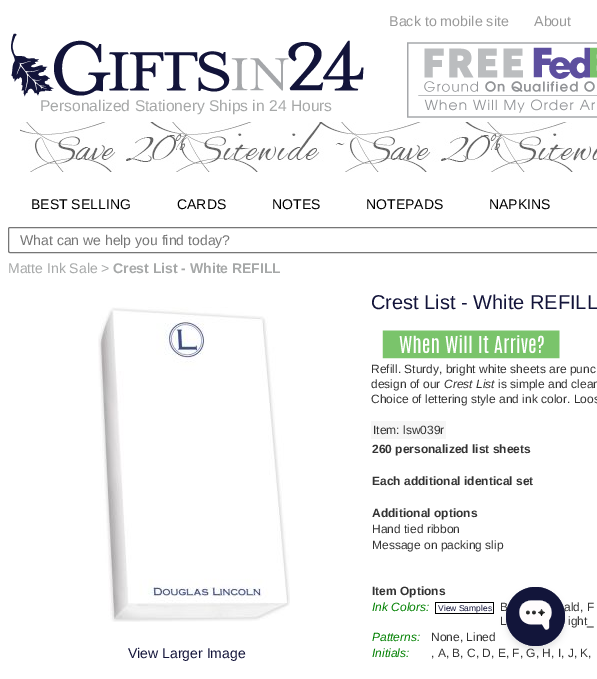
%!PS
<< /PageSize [597 679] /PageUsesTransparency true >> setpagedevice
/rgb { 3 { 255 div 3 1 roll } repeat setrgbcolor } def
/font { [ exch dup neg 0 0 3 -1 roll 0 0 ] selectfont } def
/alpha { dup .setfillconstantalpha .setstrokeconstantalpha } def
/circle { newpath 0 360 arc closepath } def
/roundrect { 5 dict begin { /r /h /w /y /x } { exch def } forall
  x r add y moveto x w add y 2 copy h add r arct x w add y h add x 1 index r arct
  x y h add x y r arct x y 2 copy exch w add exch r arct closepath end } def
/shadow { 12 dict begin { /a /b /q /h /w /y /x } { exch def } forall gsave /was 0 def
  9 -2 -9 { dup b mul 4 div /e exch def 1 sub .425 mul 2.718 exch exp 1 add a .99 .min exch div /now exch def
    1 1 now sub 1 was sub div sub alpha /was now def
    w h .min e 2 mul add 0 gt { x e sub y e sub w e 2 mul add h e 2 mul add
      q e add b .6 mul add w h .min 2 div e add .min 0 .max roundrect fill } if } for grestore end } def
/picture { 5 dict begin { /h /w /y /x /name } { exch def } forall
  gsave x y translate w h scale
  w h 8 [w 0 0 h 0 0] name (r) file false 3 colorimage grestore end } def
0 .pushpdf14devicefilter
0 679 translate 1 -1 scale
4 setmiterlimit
255 255 255 rgb
0 0 597 679 rectfill
(img/1.rgb) 11 33 353 64 picture
(img/2.rgb) 407 42 190 76 picture
(img/3.rgb) 20 122 577 50 picture
118 118 118 rgb
8.5 227.5 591 25 1.5 roundrect stroke
(img/4.rgb) 98 307 192 315 picture
(img/5.rgb) 382 330 178 29 picture
[
  [371 421 75 18 246 246 246]
  [435 602 59 1 0 0 0]
  [435 613 56 1 0 0 0]
  [435 602 1 12 0 0 0]
  [493 602 1 12 0 0 0]
  [491 613 3 1 0 0 0]
] { aload pop rgb rectfill } forall
506 591 59 59 29.5 3 0.1 shadow
/LiberationSans-Regular 14.25 font
153 153 153 rgb
389 26 moveto (Back to mobile site) show
534 26 moveto (About) show
/LiberationSans-Regular 15.6 font
166 168 168 rgb
40 111 moveto (Personalized Stationery Ships in 24 Hours) show
/LiberationSans-Regular 14 font
0 0 0 rgb
[
  [(BEST SELLING) 31 209]
  [(CARDS) 177 209]
  [(NOTES) 272 209]
  [(NOTEPADS) 366 209]
  [(NAPKINS) 489 209]
] { aload pop moveto show } forall
117 117 117 rgb
20 245 moveto (What can we help you find today?) show
166 168 168 rgb
8 273 moveto (Matte Ink Sale >) show
/LiberationSans-Bold 14 font
113 273 moveto (Crest List - White REFILL) show
/LiberationSans-Regular 14 font
19 20 58 rgb
128 658 moveto (View Larger Image) show
/LiberationSans-Regular 20 font
371 309 moveto (Crest List - White REFILL) show
/LiberationSans-Regular 12 font
51 51 51 rgb
371 373 moveto (Refill. Sturdy, bright white sheets are punc) show
371 388 moveto (design of our) show
/LiberationSans-Italic 12 font
444 388 moveto (Crest List) show
/LiberationSans-Regular 12 font
[
  [(is simple and clean) 498 388]
  [(Choice of lettering style and ink color. Loos) 371 403]
  [(Item: lsw039r) 373 434]
] { aload pop moveto show } forall
/LiberationSans-Bold 12 font
[
  [(260 personalized list sheets) 372 453]
  [(Each additional identical set) 372 485]
  [(Additional options) 372 517]
] { aload pop moveto show } forall
/LiberationSans-Regular 12 font
372 533 moveto (Hand tied ribbon) show
372 549 moveto (Message on packing slip) show
/LiberationSans-Bold 12 font
372 595 moveto (Item Options) show
/LiberationSans-Italic 12 font
0 128 0 rgb
372 611 moveto (Ink Colors:) show
/LiberationSans-Regular 8.5 font
19 20 58 rgb
438 611 moveto (View Samples) show
/LiberationSans-Regular 12 font
51 51 51 rgb
[
  [(B) 500 611]
  [(ald, F) 564 611]
  [(L) 500 625]
  [(ight_) 568 625]
] { aload pop moveto show } forall
/LiberationSans-Italic 12 font
0 128 0 rgb
372 641 moveto (Patterns:) show
/LiberationSans-Regular 12 font
51 51 51 rgb
431 641 moveto (None, Lined) show
/LiberationSans-Italic 12 font
0 128 0 rgb
372 657 moveto (Initials:) show
/LiberationSans-Regular 12 font
51 51 51 rgb
431 657 moveto (, A, B, C, D, E, F, G, H, I, J, K,) show
18 21 58 rgb
535.5 616.5 29.5 circle fill
0.75 alpha
535.5 616.5 29.5 circle fill
1 alpha
(img/6.rgb) 519 600 33 30 picture
.poppdf14devicefilter showpage
